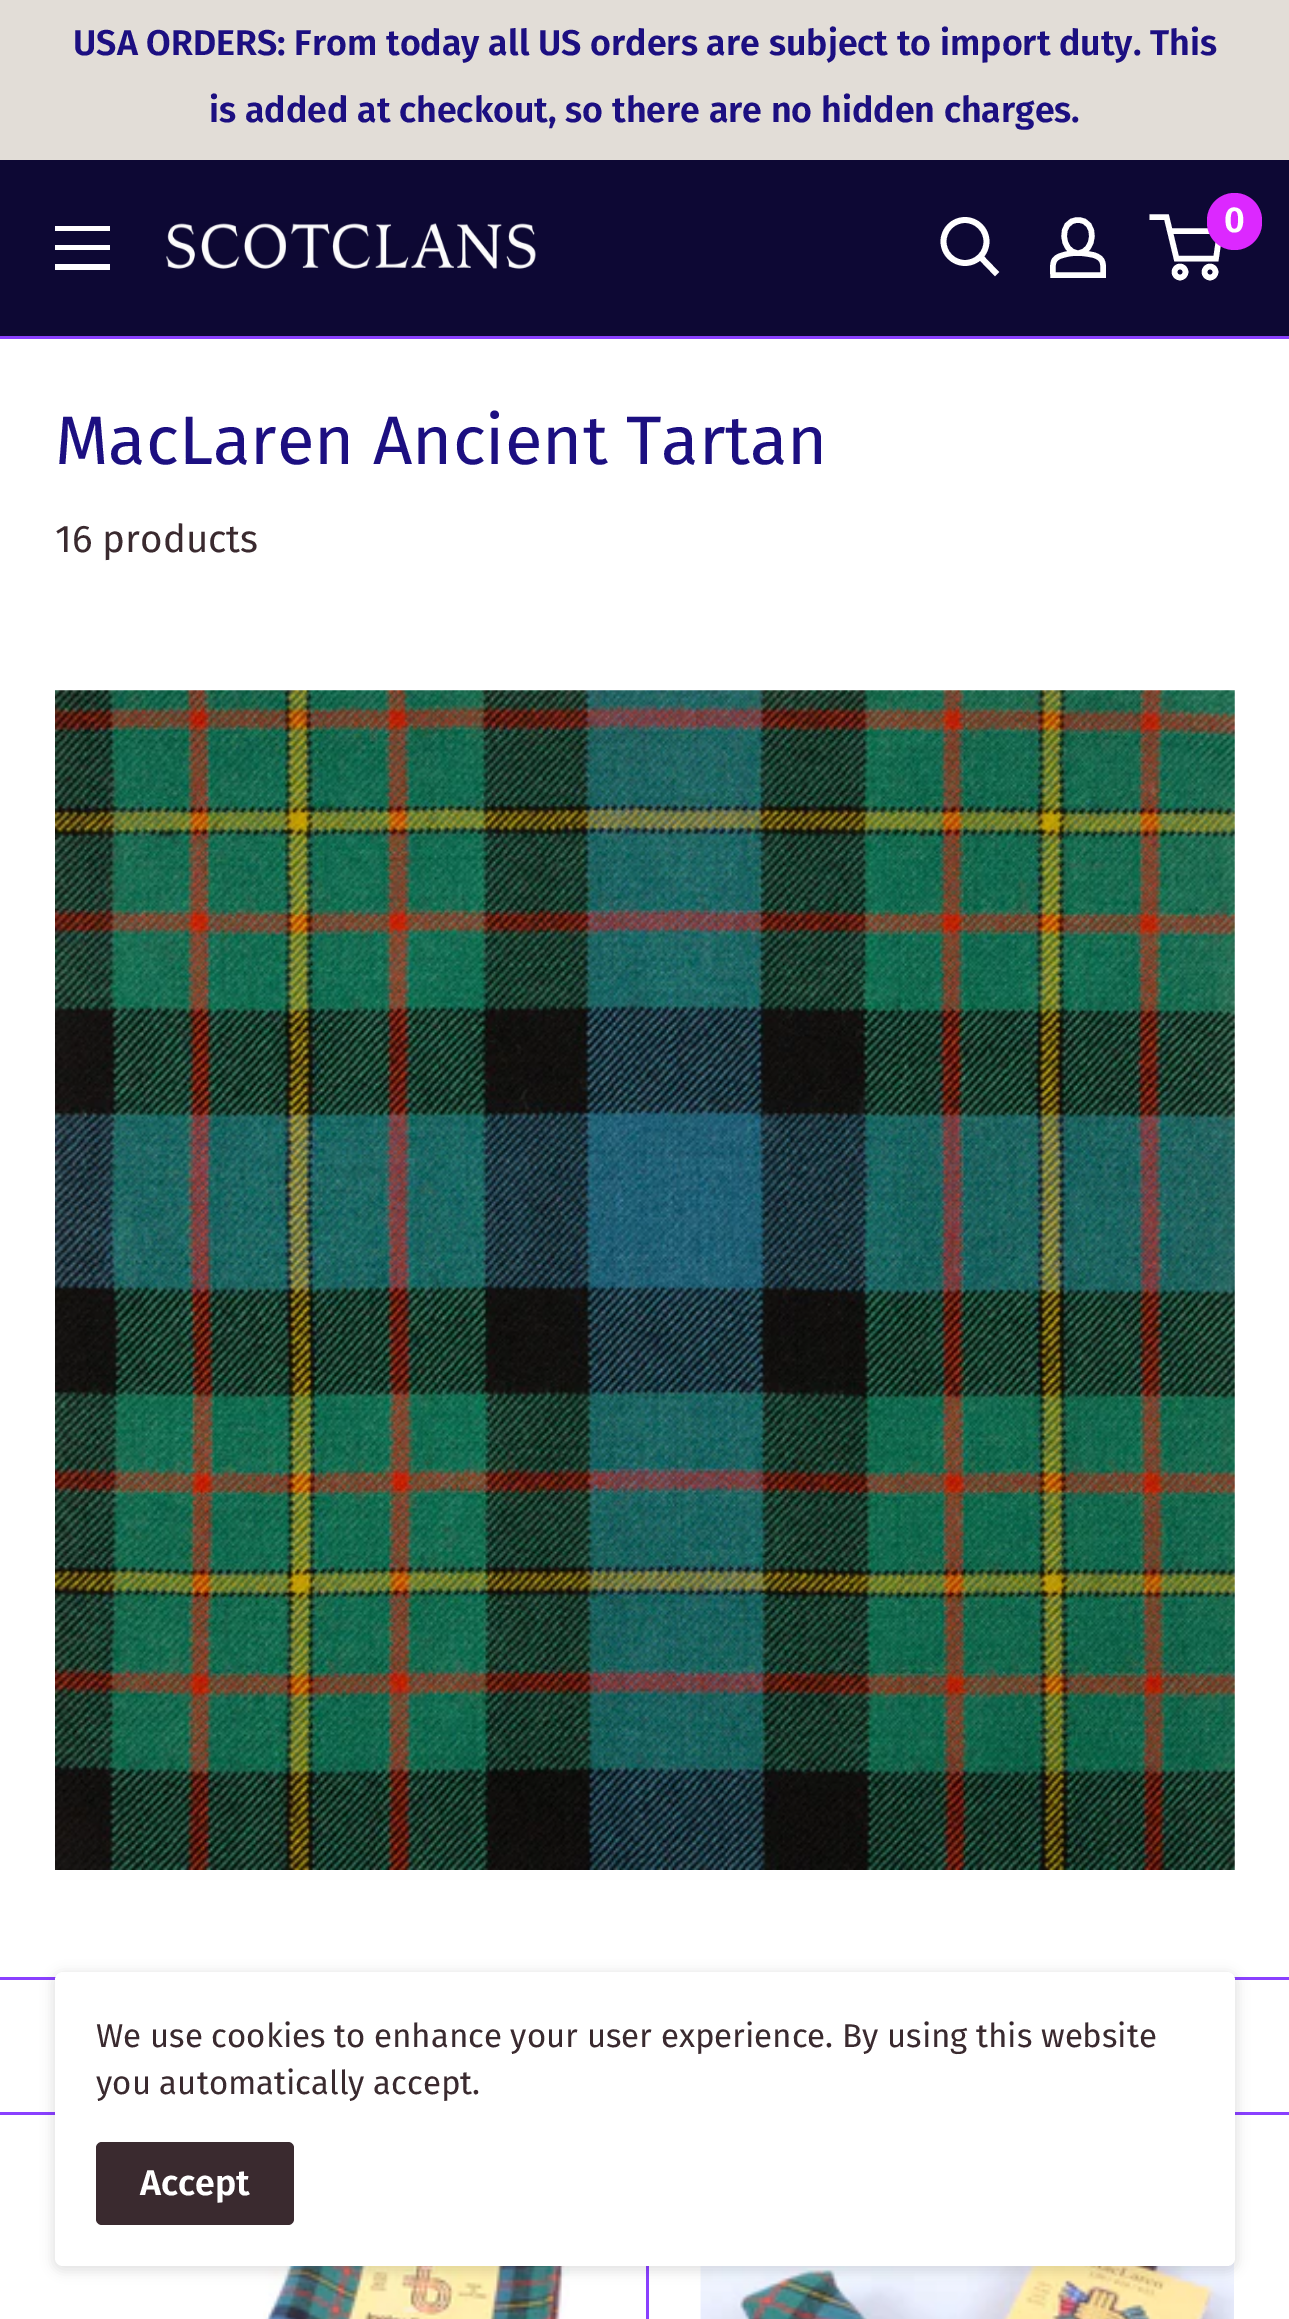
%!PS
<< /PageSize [1289 2319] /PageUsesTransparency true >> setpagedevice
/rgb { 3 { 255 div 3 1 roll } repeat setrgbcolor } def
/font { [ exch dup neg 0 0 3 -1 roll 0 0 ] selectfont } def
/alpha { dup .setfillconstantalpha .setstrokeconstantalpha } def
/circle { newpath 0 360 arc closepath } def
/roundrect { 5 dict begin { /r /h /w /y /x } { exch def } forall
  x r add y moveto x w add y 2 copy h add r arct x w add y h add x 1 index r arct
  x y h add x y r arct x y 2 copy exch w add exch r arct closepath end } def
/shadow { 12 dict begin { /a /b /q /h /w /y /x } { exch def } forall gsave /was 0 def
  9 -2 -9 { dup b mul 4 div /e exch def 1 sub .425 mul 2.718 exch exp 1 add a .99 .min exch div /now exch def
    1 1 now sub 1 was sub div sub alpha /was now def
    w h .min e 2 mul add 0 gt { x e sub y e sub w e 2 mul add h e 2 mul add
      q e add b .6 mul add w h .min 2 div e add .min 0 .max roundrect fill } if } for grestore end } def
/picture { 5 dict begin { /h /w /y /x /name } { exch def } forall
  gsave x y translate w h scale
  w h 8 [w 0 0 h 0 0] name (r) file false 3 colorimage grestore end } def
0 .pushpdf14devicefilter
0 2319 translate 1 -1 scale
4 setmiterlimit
226 221 215 rgb
0 0 1289 2319 rectfill
13 8 52 rgb
0 160 1289 176 rectfill
255 255 255 rgb
5.8 setlinewidth
2 setlinecap
995 272 moveto 981 257.5 lineto stroke
0 setlinecap
965 241.5 21.5 circle stroke
5.5 setlinewidth
1078 253 moveto 1083 253 1088.5 254 1093.5 255 curveto 1105 258.5 1103 264.5 1103 275 curveto 1053 275 lineto 1053 264 1051 258 1063.5 255 curveto 1068 253.5 1073 253 1078 253 curveto closepath 1078 253 moveto 1061 253 1058 220 1078 220 curveto 1098 220 1095 253 1078 253 curveto closepath stroke
1180 272 5.5 circle stroke
1210 272 5.5 circle stroke
1169.5 231 moveto 1220 231 lineto 1216 258.5 lineto 1176.5 258.5 lineto 1166.5 217 lineto 1149.5 217 lineto stroke
220 40 255 rgb
1207 193 55 57 27.5 roundrect fill
255 255 255 rgb
55 264 moveto 110 264 lineto 110 270 lineto 55 270 lineto closepath 55 226 moveto 110 226 lineto 110 231 lineto 55 231 lineto closepath 55 245 moveto 110 245 lineto 110 250 lineto 55 250 lineto closepath eofill
(img/1.rgb) 166 223 370 46 picture
0 339 1289 1980 rectfill
138 64 255 rgb
0 336 1289 3 rectfill
(img/2.rgb) 55 690 1180 1180 picture
0 1977 moveto 0 1980 lineto 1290 1980 lineto 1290 2109 lineto 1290 1977 lineto closepath fill
0 2112 moveto 0 2115 lineto 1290 2115 lineto 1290 1983 lineto 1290 2112 lineto closepath fill
(img/3.rgb) 263 2266 307 53 picture
646 2266 3 53 rectfill
(img/4.rgb) 700 2261 534 58 picture
0 0 0 rgb
52 1972 1186 300 11 5.5 0.1 shadow
255 255 255 rgb
55 1972 1180 294 8 roundrect fill
58 42 47 rgb
96 2142 198 83 6 roundrect fill
/FiraSans-SemiBold 35.75 font
28 15 129 rgb
73 55 moveto (USA ORDERS: From today all US orders are subject to import duty. This) show
209 122 moveto (is added at checkout, so there are no hidden charges.) show
/FiraSans-SemiBold 36 font
255 255 255 rgb
1224 232 moveto (0) show
/FiraSans-Regular 68.75 font
28 15 129 rgb
55 464 moveto (MacLaren Ancient Tartan) show
/FiraSans-Regular 38.5 font
58 42 47 rgb
55 552 moveto (16 products) show
/FiraSans-Regular 33 font
96 2047 moveto (We use cookies to enhance your user experience. By using this website) show
96 2094 moveto (you automatically accept.) show
/FiraSans-SemiBold 35.75 font
255 255 255 rgb
140 2195 moveto (Accept) show
.poppdf14devicefilter showpage
